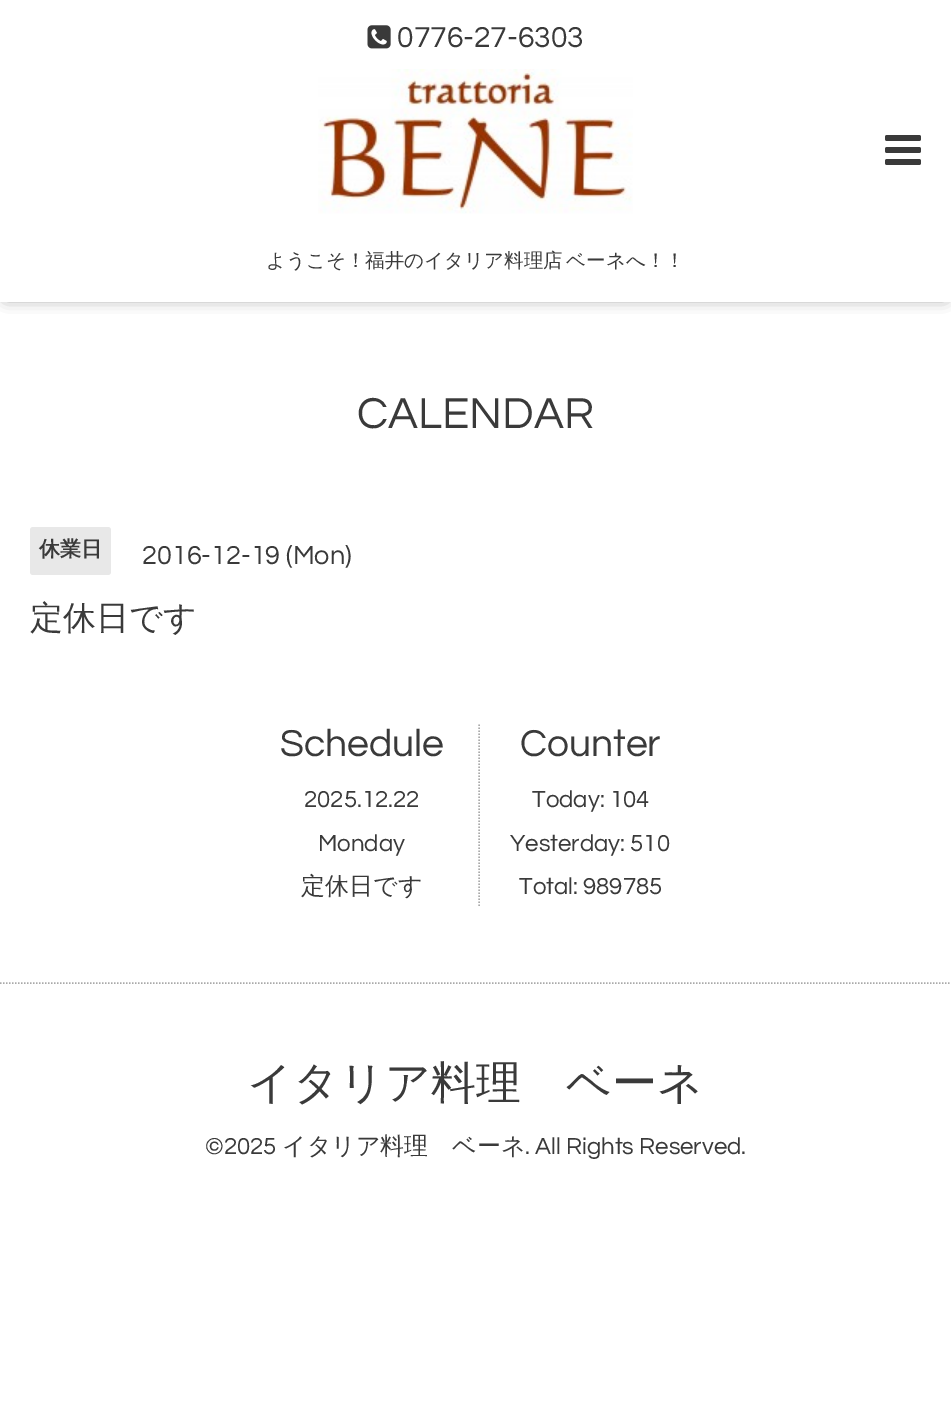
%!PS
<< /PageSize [951 1412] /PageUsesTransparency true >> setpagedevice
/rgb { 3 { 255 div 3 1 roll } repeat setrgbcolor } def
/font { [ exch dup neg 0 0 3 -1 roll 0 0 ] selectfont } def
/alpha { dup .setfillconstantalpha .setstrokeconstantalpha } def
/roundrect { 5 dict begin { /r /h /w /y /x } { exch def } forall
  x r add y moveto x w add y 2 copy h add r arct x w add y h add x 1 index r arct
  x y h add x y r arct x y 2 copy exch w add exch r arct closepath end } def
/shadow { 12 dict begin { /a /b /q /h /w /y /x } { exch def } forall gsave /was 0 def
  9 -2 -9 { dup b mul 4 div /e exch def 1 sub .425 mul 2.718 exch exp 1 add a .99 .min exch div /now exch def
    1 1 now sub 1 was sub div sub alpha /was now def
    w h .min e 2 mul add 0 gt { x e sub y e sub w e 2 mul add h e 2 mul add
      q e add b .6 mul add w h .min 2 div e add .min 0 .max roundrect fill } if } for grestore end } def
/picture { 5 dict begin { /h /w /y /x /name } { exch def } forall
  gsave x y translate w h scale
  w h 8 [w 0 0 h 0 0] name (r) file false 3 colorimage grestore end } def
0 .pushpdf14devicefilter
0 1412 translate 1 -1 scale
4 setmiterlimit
255 255 255 rgb
0 0 951 1412 rectfill
0 0 0 rgb
6 8 939 289 0 7.5 0.6 shadow
255 255 255 rgb
0 0 951 302 rectfill
(img/1.rgb) 367 25 24 24 picture
(img/2.rgb) 318 69 315 145 picture
(img/3.rgb) 885 135 36 30 picture
232 232 232 rgb
30 527 81 48 3 roundrect fill
169 169 169 rgb
1.5 setlinewidth
[1.5 1.5] 0 setdash
479 724.5 moveto 479 907.5 lineto stroke
0 983 moveto 951 983 lineto stroke
/Questrial-Regular 30 font
58 58 58 rgb
397 47 moveto (0776-27-6303) show
/WenQuanYiZenHei-Medium 19.5 font
266 267 moveto -2 0 32 (ようこそ！福井のイタリア料理店 ベーネへ！！) widthshow
/Questrial-Regular 45 font
357 428 moveto (CALENDAR) show
/WenQuanYiZenHei-Bold 21 font
39 556 moveto (休業日) show
/Questrial-Regular 27 font
142 564 moveto (2016-12-19 \(Mon\)) show
/WenQuanYiZenHei-Medium 33 font
30 629 moveto (定休日です) show
/Questrial-Regular 39 font
280 756 moveto (Schedule) show
/Questrial-Regular 24 font
304 807 moveto (2025.12.22) show
318 851 moveto (Monday) show
/WenQuanYiZenHei-Medium 24 font
301 894 moveto (定休日です) show
/Questrial-Regular 39 font
520 756 moveto (Counter) show
/Questrial-Regular 24 font
[
  [(Today: 104) 532 807]
  [(Yesterday: 510) 510 851]
  [(Total: 989785) 519 894]
] { aload pop moveto show } forall
/WenQuanYiZenHei-Medium 45 font
247 1098 moveto (イタリア料理　ベーネ) show
/Questrial-Regular 24 font
205 1154 moveto (©2025) show
/WenQuanYiZenHei-Medium 24 font
282 1154 moveto (イタリア料理　ベーネ) show
/Questrial-Regular 24 font
525 1154 moveto (. All Rights Reserved.) show
.poppdf14devicefilter showpage
